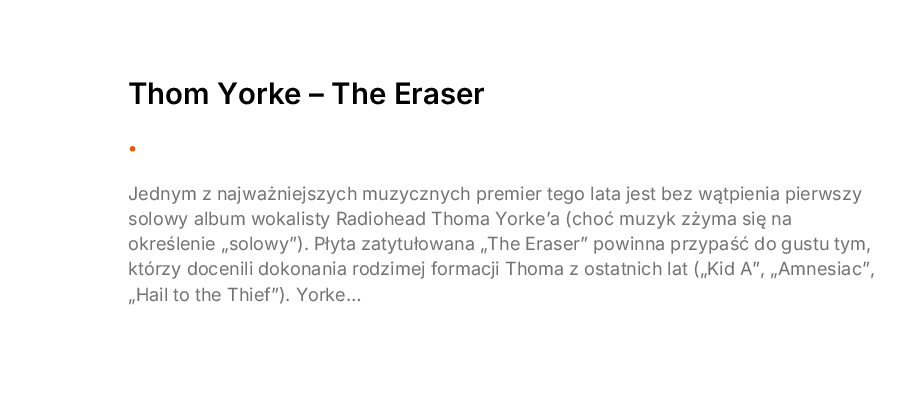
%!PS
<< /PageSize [913 398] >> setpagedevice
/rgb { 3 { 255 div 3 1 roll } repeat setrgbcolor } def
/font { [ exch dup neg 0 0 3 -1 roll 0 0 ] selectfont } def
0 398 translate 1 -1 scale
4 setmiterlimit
255 255 255 rgb
0 0 913 398 rectfill
/Inter-SemiBold 29.4 font
0 0 0 rgb
128 104 moveto (Thom Yorke – The Eraser) show
/Inter-SemiBold 18.05 font
234 88 12 rgb
128 154 moveto (•) show
/Inter-Regular 18.05 font
115 115 115 rgb
[
  [(Jednym z najważniejszych muzycznych premier tego lata jest bez wątpienia pierwszy) 128 200]
  [(solowy album wokalisty Radiohead Thoma Yorke’a \(choć muzyk zżyma się na) 128 225]
  [(określenie „solowy”\). Płyta zatytułowana „The Eraser” powinna przypaść do gustu tym,) 128 250]
  [(którzy docenili dokonania rodzimej formacji Thoma z ostatnich lat \(„Kid A”, „Amnesiac”,) 128 275]
  [(„Hail to the Thief”\). Yorke…) 128 301]
] { aload pop moveto show } forall
showpage
